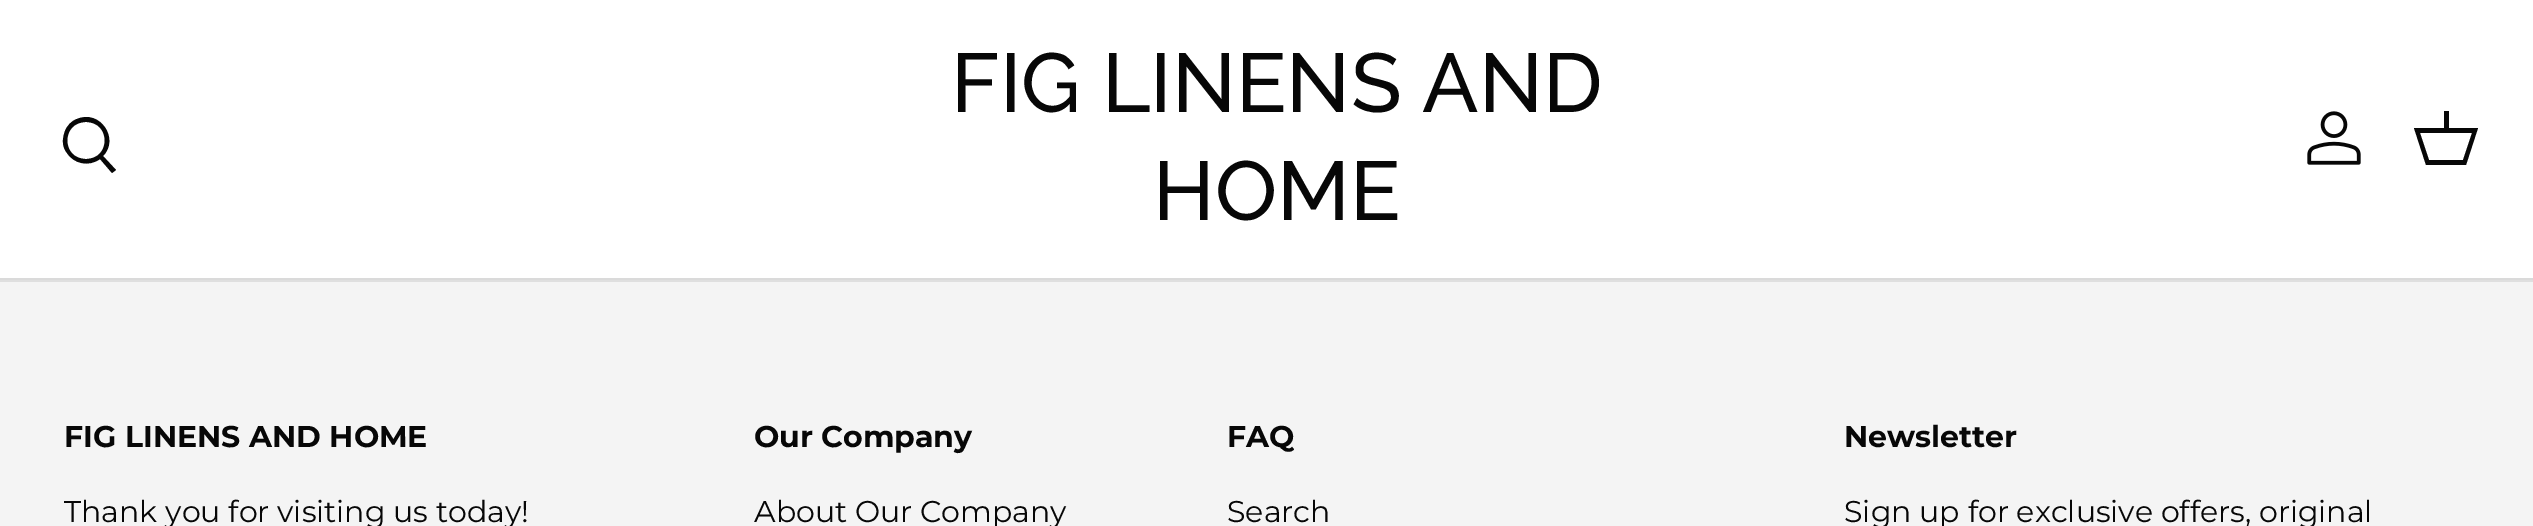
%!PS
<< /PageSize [2533 526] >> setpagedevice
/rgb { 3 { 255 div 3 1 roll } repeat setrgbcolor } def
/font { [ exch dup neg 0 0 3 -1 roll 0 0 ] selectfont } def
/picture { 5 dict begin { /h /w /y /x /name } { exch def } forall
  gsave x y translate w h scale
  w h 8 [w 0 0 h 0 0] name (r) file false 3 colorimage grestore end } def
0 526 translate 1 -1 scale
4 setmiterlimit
223 223 223 rgb
0 0 2533 526 rectfill
255 255 255 rgb
0 0 2533 278 rectfill
218 218 218 rgb
0 278 2533 2 rectfill
7 7 7 rgb
103 156 moveto 116 170 lineto 112 173 lineto 100 159 lineto 89 167 74 164 67 153 curveto 62 147 62 139 65 131 curveto 67 126 71 121 77 119 curveto 100 109 120 139 103 156 curveto closepath 86 159 moveto 111 159 111 122 86 122 curveto 61 122 61 159 86 159 curveto closepath fill
(img/1.rgb) 2307 111 54 54 picture
2444 128 moveto 2444 111 lineto 2449 111 lineto 2449 128 lineto 2478 128 lineto 2466 165 lineto 2426 165 lineto 2414 128 lineto closepath 2420 133 moveto 2429 160 lineto 2463 160 lineto 2472 133 lineto closepath fill
244 244 244 rgb
0 282 2533 244 rectfill
/Raleway-Medium 83.25 font
7 7 7 rgb
951 112 moveto (FIG LINENS AND) show
1153 220 moveto (HOME) show
/Montserrat-Bold 30 font
64 447 moveto (FIG LINENS AND HOME) show
/Montserrat-Regular 30 font
64 522 moveto (Thank you for visiting us today!) show
/Montserrat-Bold 30 font
754 447 moveto (Our Company) show
/Montserrat-Regular 30 font
754 522 moveto (About Our Company) show
/Montserrat-Bold 30 font
1227 447 moveto (FAQ) show
/Montserrat-Regular 30 font
1227 522 moveto (Search) show
/Montserrat-Bold 30 font
1844 447 moveto (Newsletter) show
/Montserrat-Regular 30 font
1844 522 moveto (Sign up for exclusive offers, original) show
showpage
